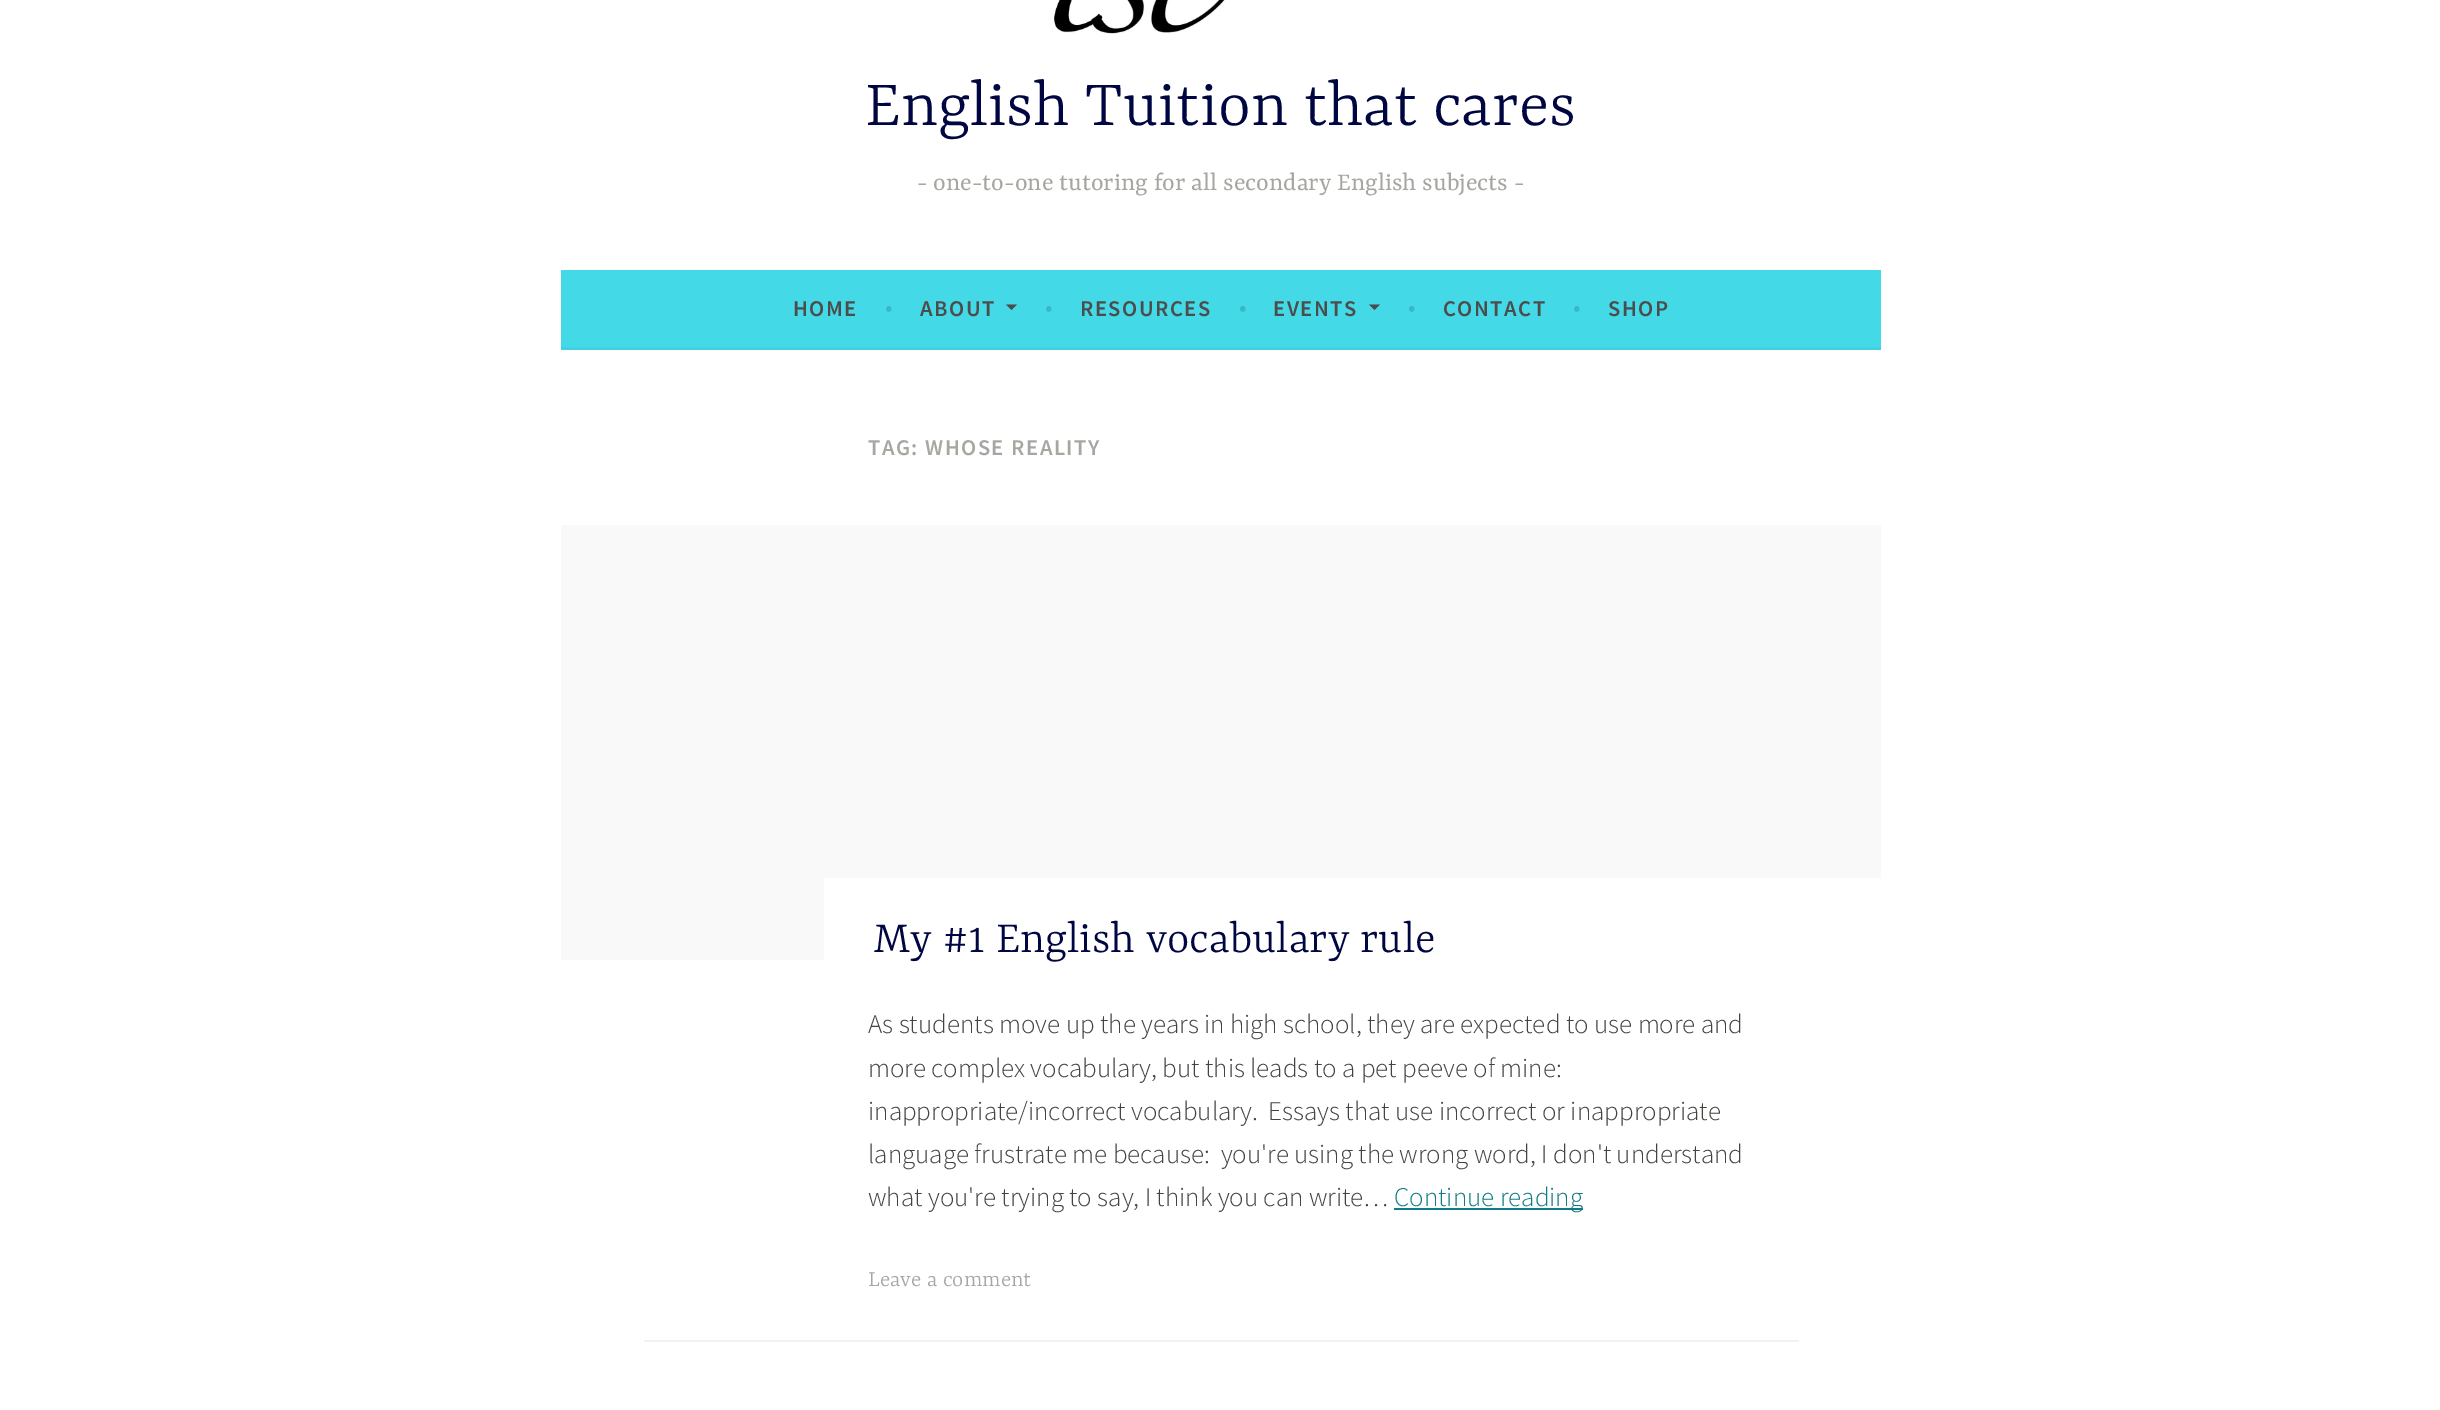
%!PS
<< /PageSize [2440 1410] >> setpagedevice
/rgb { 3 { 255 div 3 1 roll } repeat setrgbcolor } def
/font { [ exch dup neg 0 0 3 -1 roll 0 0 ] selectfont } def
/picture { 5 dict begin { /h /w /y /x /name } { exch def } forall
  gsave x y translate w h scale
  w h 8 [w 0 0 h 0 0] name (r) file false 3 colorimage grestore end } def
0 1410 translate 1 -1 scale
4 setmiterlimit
255 255 255 rgb
0 0 2440 1410 rectfill
(img/1.rgb) 1054 0 171 34 picture
68 217 230 rgb
561 270 1320 77 rectfill
66 210 223 rgb
561 347 1320 3 rectfill
76 76 76 rgb
1006 304.5 moveto 1017 304.5 lineto 1011.5 310 lineto closepath fill
1369 304.5 moveto 1380 304.5 lineto 1374.5 310 lineto closepath fill
[
  [561 525 1320 435 248 249 248]
  [824 878 1057 82 255 255 255]
  [1394 1208 189 2 14 123 133]
  [644 1340 1155 2 242 242 242]
] { aload pop rgb rectfill } forall
/Yrsa-Light 70.5 font
0 6 65 rgb
865 125 moveto (English Tuition that cares) show
/Yrsa-Regular 27 font
168 166 161 rgb
917 190 moveto (- one-to-one tutoring for all secondary English subjects -) show
/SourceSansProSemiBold-SemiBold 22.5 font
76 76 76 rgb
793 316 moveto 1.5 0 (HOME) ashow
/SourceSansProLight-Light 27 font
58 184 196 rgb
885 316 moveto (•) show
/SourceSansProSemiBold-SemiBold 22.5 font
76 76 76 rgb
920 316 moveto 1.5 0 (ABOUT) ashow
/SourceSansProLight-Light 27 font
58 184 196 rgb
1045 316 moveto (•) show
/SourceSansProSemiBold-SemiBold 22.5 font
76 76 76 rgb
1080 316 moveto 1.5 0 (RESOURCES) ashow
/SourceSansProLight-Light 27 font
58 184 196 rgb
1239 316 moveto (•) show
/SourceSansProSemiBold-SemiBold 22.5 font
76 76 76 rgb
1273 316 moveto 1.5 0 (EVENTS) ashow
/SourceSansProLight-Light 27 font
58 184 196 rgb
1408 316 moveto (•) show
/SourceSansProSemiBold-SemiBold 22.5 font
76 76 76 rgb
1443 316 moveto 1.5 0 (CONTACT) ashow
/SourceSansProLight-Light 27 font
58 184 196 rgb
1573 316 moveto (•) show
/SourceSansProSemiBold-SemiBold 22.5 font
76 76 76 rgb
1608 316 moveto 1.5 0 (SHOP) ashow
168 166 161 rgb
868 455 moveto 1.5 0 (TAG: WHOSE REALITY) ashow
/Yrsa-Light 48 font
0 6 65 rgb
874 952 moveto (My #1 English vocabulary rule) show
/SourceSansProLight-Light 27 font
68 67 64 rgb
[
  [(As students move up the years in high school, they are expected to use more and) 868 1033]
  [(more complex vocabulary, but this leads to a pet peeve of mine:) 868 1077]
  [(inappropriate/incorrect vocabulary.  Essays that use incorrect or inappropriate) 868 1120]
  [(language frustrate me because:  you're using the wrong word, I don't understand) 868 1163]
  [(what you're trying to say, I think you can write…) 868 1206]
] { aload pop moveto show } forall
14 123 133 rgb
1394 1206 moveto (Continue reading) show
/Yrsa-Light 24 font
168 166 161 rgb
868 1286 moveto (Leave a comment) show
showpage
